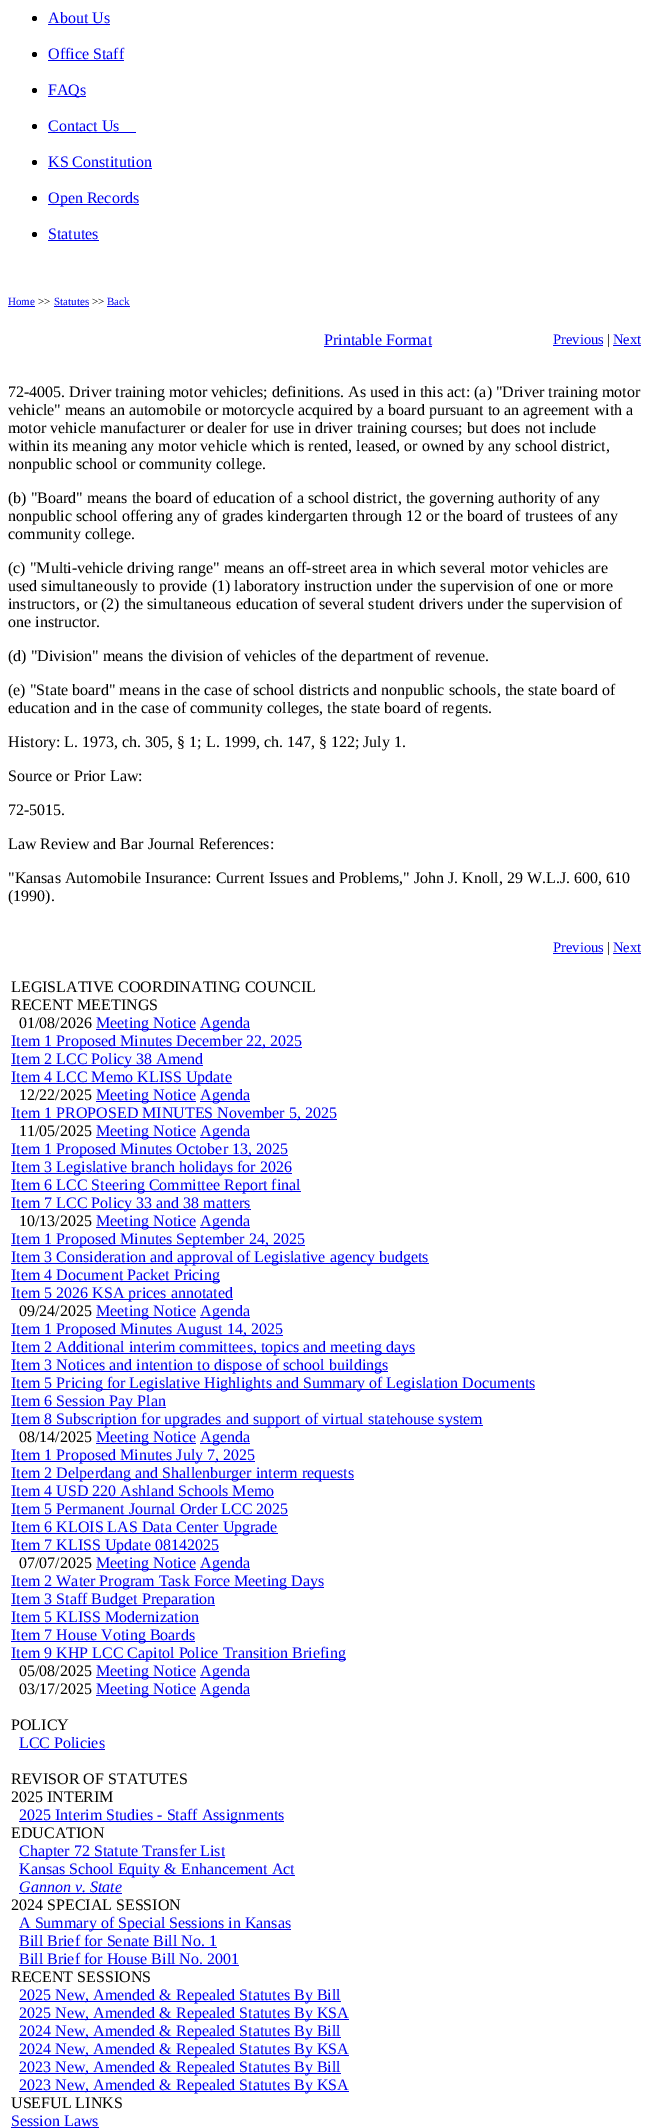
%!PS
<< /PageSize [649 2128] >> setpagedevice
/rgb { 3 { 255 div 3 1 roll } repeat setrgbcolor } def
/font { [ exch dup neg 0 0 3 -1 roll 0 0 ] selectfont } def
/circle { newpath 0 360 arc closepath } def
0 2128 translate 1 -1 scale
4 setmiterlimit
255 255 255 rgb
0 0 649 2128 rectfill
0 0 0 rgb
34.5 18.5 2.5 circle fill
0 0 238 rgb
48 24 62 1 rectfill
0 0 0 rgb
34.5 54.5 2.5 circle fill
0 0 238 rgb
48 60 76 1 rectfill
0 0 0 rgb
34.5 90.5 2.5 circle fill
0 0 238 rgb
48 96 38 1 rectfill
0 0 0 rgb
34.5 126.5 2.5 circle fill
0 0 238 rgb
48 132 88 1 rectfill
0 0 0 rgb
34.5 162.5 2.5 circle fill
0 0 238 rgb
48 168 104 1 rectfill
0 0 0 rgb
34.5 198.5 2.5 circle fill
0 0 238 rgb
48 204 91 1 rectfill
0 0 0 rgb
34.5 234.5 2.5 circle fill
[
  [48 240 51 1 0 0 238]
  [8 306 27 1 0 0 238]
  [54 306 35 1 0 0 238]
  [107 306 23 1 0 0 238]
  [324 346 108 1 0 0 238]
  [553 345 50 1 0 0 238]
  [613 345 28 1 0 0 238]
  [553 953 50 1 0 0 238]
  [613 953 28 1 0 0 238]
  [96 1029 100 1 0 0 238]
  [200 1029 50 1 0 0 238]
  [11 1047 291 1 0 0 238]
  [11 1065 192 1 0 0 238]
  [11 1083 221 1 0 0 238]
  [96 1101 100 1 0 0 238]
  [200 1101 50 1 0 0 238]
  [11 1119 326 1 0 0 238]
  [96 1137 100 1 0 0 238]
  [200 1137 50 1 0 0 238]
  [11 1155 277 1 0 0 238]
  [11 1173 281 1 0 0 238]
  [11 1191 290 1 0 0 238]
  [11 1209 240 1 0 0 238]
  [96 1227 100 1 0 0 238]
  [200 1227 50 1 0 0 238]
  [11 1245 294 1 0 0 238]
  [11 1263 418 1 0 0 238]
  [11 1281 209 1 0 0 238]
  [11 1299 222 1 0 0 238]
  [96 1317 100 1 0 0 238]
  [200 1317 50 1 0 0 238]
  [11 1335 272 1 0 0 238]
  [11 1353 404 1 0 0 238]
  [11 1371 377 1 0 0 238]
  [11 1389 524 1 0 0 238]
  [11 1407 155 1 0 0 238]
  [11 1425 472 1 0 0 238]
  [96 1443 100 1 0 0 238]
  [200 1443 50 1 0 0 238]
  [11 1461 244 1 0 0 238]
  [11 1479 343 1 0 0 238]
  [11 1497 263 1 0 0 238]
  [11 1515 277 1 0 0 238]
  [11 1533 267 1 0 0 238]
  [11 1551 208 1 0 0 238]
  [96 1569 100 1 0 0 238]
  [200 1569 50 1 0 0 238]
  [11 1587 313 1 0 0 238]
  [11 1605 204 1 0 0 238]
  [11 1623 188 1 0 0 238]
  [11 1641 184 1 0 0 238]
  [11 1659 335 1 0 0 238]
  [96 1677 100 1 0 0 238]
  [200 1677 50 1 0 0 238]
  [96 1695 100 1 0 0 238]
  [200 1695 50 1 0 0 238]
  [19 1749 86 1 0 0 238]
  [19 1821 265 1 0 0 238]
  [19 1857 206 1 0 0 238]
  [19 1875 276 1 0 0 238]
  [19 1893 103 1 0 0 238]
  [19 1929 272 1 0 0 238]
  [19 1947 198 1 0 0 238]
  [19 1965 220 1 0 0 238]
  [19 2001 322 1 0 0 238]
  [19 2019 330 1 0 0 238]
  [19 2037 322 1 0 0 238]
  [19 2055 330 1 0 0 238]
  [19 2073 322 1 0 0 238]
  [19 2091 330 1 0 0 238]
  [11 2127 88 1 0 0 238]
] { aload pop rgb rectfill } forall
/LiberationSerif-Regular 16 font
[
  [(About Us) 48 23]
  [(Office Staff) 48 59]
  [(FAQs) 48 95]
  [(Contact Us) 48 131]
  [(KS Constitution) 48 167]
  [(Open Records) 48 203]
  [(Statutes) 48 239]
] { aload pop moveto show } forall
/LiberationSerif-Regular 11 font
8 305 moveto (Home) show
0 0 0 rgb
38 305 moveto (>>) show
0 0 238 rgb
54 305 moveto (Statutes) show
0 0 0 rgb
92 305 moveto (>>) show
0 0 238 rgb
107 305 moveto (Back) show
/LiberationSerif-Regular 16 font
324 345 moveto (Printable Format) show
/LiberationSerif-Regular 14.5 font
553 344 moveto (Previous) show
0 0 0 rgb
607 344 moveto (|) show
0 0 238 rgb
613 344 moveto (Next) show
/LiberationSerif-Regular 16 font
0 0 0 rgb
[
  [(72-4005. Driver training motor vehicles; definitions. As used in this act: \(a\) "Driver training motor) 8 397]
  [(vehicle" means an automobile or motorcycle acquired by a board pursuant to an agreement with a) 8 415]
  [(motor vehicle manufacturer or dealer for use in driver training courses; but does not include) 8 433]
  [(within its meaning any motor vehicle which is rented, leased, or owned by any school district,) 8 451]
  [(nonpublic school or community college.) 8 469]
  [(\(b\) "Board" means the board of education of a school district, the governing authority of any) 8 503]
  [(nonpublic school offering any of grades kindergarten through 12 or the board of trustees of any) 8 521]
  [(community college.) 8 539]
  [(\(c\) "Multi-vehicle driving range" means an off-street area in which several motor vehicles are) 8 573]
  [(used simultaneously to provide \(1\) laboratory instruction under the supervision of one or more) 8 591]
  [(instructors, or \(2\) the simultaneous education of several student drivers under the supervision of) 8 609]
  [(one instructor.) 8 627]
  [(\(d\) "Division" means the division of vehicles of the department of revenue.) 8 661]
  [(\(e\) "State board" means in the case of school districts and nonpublic schools, the state board of) 8 695]
  [(education and in the case of community colleges, the state board of regents.) 8 713]
  [(History: L. 1973, ch. 305, § 1; L. 1999, ch. 147, § 122; July 1.) 8 747]
  [(Source or Prior Law:) 8 781]
  [(72-5015.) 8 815]
  [(Law Review and Bar Journal References:) 8 849]
  [("Kansas Automobile Insurance: Current Issues and Problems," John J. Knoll, 29 W.L.J. 600, 610) 8 883]
  [(\(1990\).) 8 901]
] { aload pop moveto show } forall
/LiberationSerif-Regular 14.5 font
0 0 238 rgb
553 952 moveto (Previous) show
0 0 0 rgb
607 952 moveto (|) show
0 0 238 rgb
613 952 moveto (Next) show
/LiberationSerif-Regular 16 font
0 0 0 rgb
[
  [(LEGISLATIVE COORDINATING COUNCIL) 11 992]
  [(RECENT MEETINGS) 11 1010]
  [(01/08/2026) 19 1028]
] { aload pop moveto show } forall
0 0 238 rgb
[
  [(Meeting Notice) 96 1028]
  [(Agenda) 200 1028]
  [(Item 1 Proposed Minutes December 22, 2025) 11 1046]
  [(Item 2 LCC Policy 38 Amend) 11 1064]
  [(Item 4 LCC Memo KLISS Update) 11 1082]
] { aload pop moveto show } forall
0 0 0 rgb
19 1100 moveto (12/22/2025) show
0 0 238 rgb
[
  [(Meeting Notice) 96 1100]
  [(Agenda) 200 1100]
  [(Item 1 PROPOSED MINUTES November 5, 2025) 11 1118]
] { aload pop moveto show } forall
0 0 0 rgb
19 1136 moveto (11/05/2025) show
0 0 238 rgb
[
  [(Meeting Notice) 96 1136]
  [(Agenda) 200 1136]
  [(Item 1 Proposed Minutes October 13, 2025) 11 1154]
  [(Item 3 Legislative branch holidays for 2026) 11 1172]
  [(Item 6 LCC Steering Committee Report final) 11 1190]
  [(Item 7 LCC Policy 33 and 38 matters) 11 1208]
] { aload pop moveto show } forall
0 0 0 rgb
19 1226 moveto (10/13/2025) show
0 0 238 rgb
[
  [(Meeting Notice) 96 1226]
  [(Agenda) 200 1226]
  [(Item 1 Proposed Minutes September 24, 2025) 11 1244]
  [(Item 3 Consideration and approval of Legislative agency budgets) 11 1262]
  [(Item 4 Document Packet Pricing) 11 1280]
  [(Item 5 2026 KSA prices annotated) 11 1298]
] { aload pop moveto show } forall
0 0 0 rgb
19 1316 moveto (09/24/2025) show
0 0 238 rgb
[
  [(Meeting Notice) 96 1316]
  [(Agenda) 200 1316]
  [(Item 1 Proposed Minutes August 14, 2025) 11 1334]
  [(Item 2 Additional interim committees, topics and meeting days) 11 1352]
  [(Item 3 Notices and intention to dispose of school buildings) 11 1370]
  [(Item 5 Pricing for Legislative Highlights and Summary of Legislation Documents) 11 1388]
  [(Item 6 Session Pay Plan) 11 1406]
  [(Item 8 Subscription for upgrades and support of virtual statehouse system) 11 1424]
] { aload pop moveto show } forall
0 0 0 rgb
19 1442 moveto (08/14/2025) show
0 0 238 rgb
[
  [(Meeting Notice) 96 1442]
  [(Agenda) 200 1442]
  [(Item 1 Proposed Minutes July 7, 2025) 11 1460]
  [(Item 2 Delperdang and Shallenburger interm requests) 11 1478]
  [(Item 4 USD 220 Ashland Schools Memo) 11 1496]
  [(Item 5 Permanent Journal Order LCC 2025) 11 1514]
  [(Item 6 KLOIS LAS Data Center Upgrade) 11 1532]
  [(Item 7 KLISS Update 08142025) 11 1550]
] { aload pop moveto show } forall
0 0 0 rgb
19 1568 moveto (07/07/2025) show
0 0 238 rgb
[
  [(Meeting Notice) 96 1568]
  [(Agenda) 200 1568]
  [(Item 2 Water Program Task Force Meeting Days) 11 1586]
  [(Item 3 Staff Budget Preparation) 11 1604]
  [(Item 5 KLISS Modernization) 11 1622]
  [(Item 7 House Voting Boards) 11 1640]
  [(Item 9 KHP LCC Capitol Police Transition Briefing) 11 1658]
] { aload pop moveto show } forall
0 0 0 rgb
19 1676 moveto (05/08/2025) show
0 0 238 rgb
96 1676 moveto (Meeting Notice) show
200 1676 moveto (Agenda) show
0 0 0 rgb
19 1694 moveto (03/17/2025) show
0 0 238 rgb
96 1694 moveto (Meeting Notice) show
200 1694 moveto (Agenda) show
0 0 0 rgb
11 1730 moveto (POLICY) show
0 0 238 rgb
19 1748 moveto (LCC Policies) show
0 0 0 rgb
11 1784 moveto (REVISOR OF STATUTES) show
11 1802 moveto (2025 INTERIM) show
0 0 238 rgb
19 1820 moveto (2025 Interim Studies - Staff Assignments) show
0 0 0 rgb
11 1838 moveto (EDUCATION) show
0 0 238 rgb
19 1856 moveto (Chapter 72 Statute Transfer List) show
19 1874 moveto (Kansas School Equity & Enhancement Act) show
/LiberationSerif-Italic 16 font
19 1892 moveto (Gannon v. State) show
/LiberationSerif-Regular 16 font
0 0 0 rgb
11 1910 moveto (2024 SPECIAL SESSION) show
0 0 238 rgb
[
  [(A Summary of Special Sessions in Kansas) 19 1928]
  [(Bill Brief for Senate Bill No. 1) 19 1946]
  [(Bill Brief for House Bill No. 2001) 19 1964]
] { aload pop moveto show } forall
0 0 0 rgb
11 1982 moveto (RECENT SESSIONS) show
0 0 238 rgb
[
  [(2025 New, Amended & Repealed Statutes By Bill) 19 2000]
  [(2025 New, Amended & Repealed Statutes By KSA) 19 2018]
  [(2024 New, Amended & Repealed Statutes By Bill) 19 2036]
  [(2024 New, Amended & Repealed Statutes By KSA) 19 2054]
  [(2023 New, Amended & Repealed Statutes By Bill) 19 2072]
  [(2023 New, Amended & Repealed Statutes By KSA) 19 2090]
] { aload pop moveto show } forall
0 0 0 rgb
11 2108 moveto (USEFUL LINKS) show
0 0 238 rgb
11 2126 moveto (Session Laws) show
showpage
